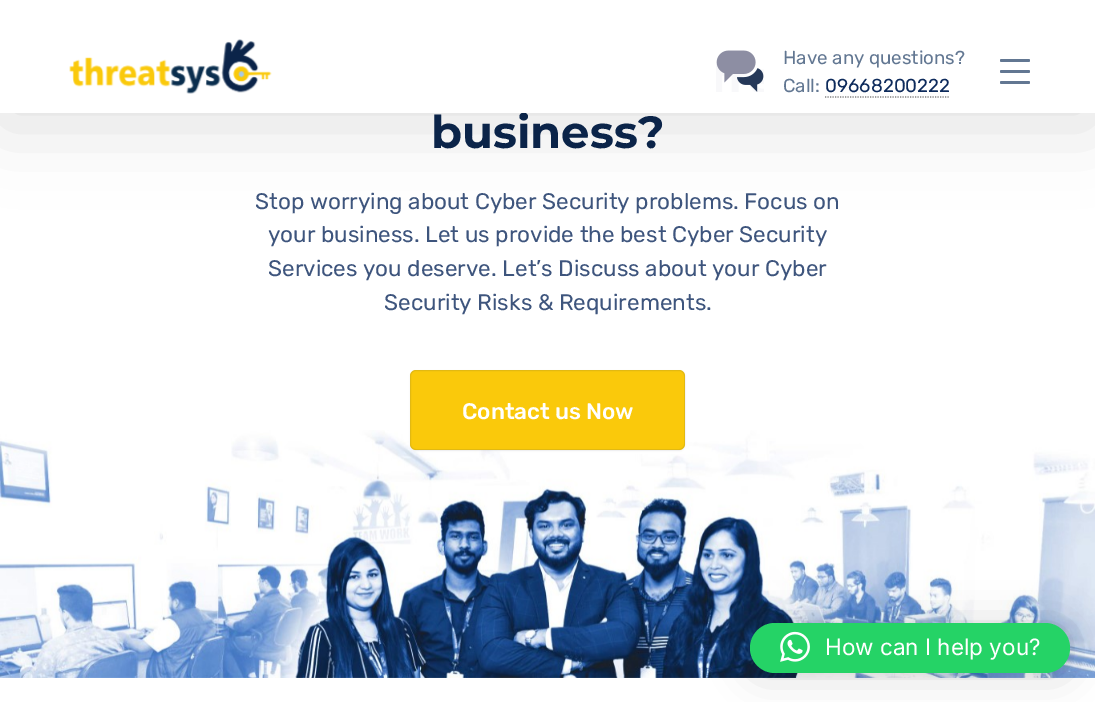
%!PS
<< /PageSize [1095 702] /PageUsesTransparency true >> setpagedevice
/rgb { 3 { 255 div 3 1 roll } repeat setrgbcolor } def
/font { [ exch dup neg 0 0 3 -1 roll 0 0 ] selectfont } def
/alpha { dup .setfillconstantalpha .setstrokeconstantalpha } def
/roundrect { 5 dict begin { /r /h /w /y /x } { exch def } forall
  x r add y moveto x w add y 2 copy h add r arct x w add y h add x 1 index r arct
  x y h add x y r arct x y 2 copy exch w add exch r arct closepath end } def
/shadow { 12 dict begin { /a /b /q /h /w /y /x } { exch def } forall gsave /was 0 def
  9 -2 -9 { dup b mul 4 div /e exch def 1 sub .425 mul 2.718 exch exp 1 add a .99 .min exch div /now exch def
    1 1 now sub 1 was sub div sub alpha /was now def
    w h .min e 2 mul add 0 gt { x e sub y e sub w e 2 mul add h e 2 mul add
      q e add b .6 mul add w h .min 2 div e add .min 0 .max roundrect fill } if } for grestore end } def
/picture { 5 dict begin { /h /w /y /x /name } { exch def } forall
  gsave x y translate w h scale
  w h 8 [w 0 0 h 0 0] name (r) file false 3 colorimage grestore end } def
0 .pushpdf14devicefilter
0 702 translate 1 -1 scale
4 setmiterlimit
255 255 255 rgb
0 0 1095 702 rectfill
gsave
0 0 moveto 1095 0 lineto 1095 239 lineto 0 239 lineto closepath 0 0 moveto 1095 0 lineto 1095 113 lineto 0 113 lineto closepath eoclip newpath
0 0 0 rgb
0 13 1095 112 0 37.5 0.12 shadow
grestore
(img/1.rgb) 69 39 203 55 picture
(img/2.rgb) 716 50 48 42 picture
127 127 127 rgb
1.2 setlinewidth
[1.25 1.25] 0 setdash
825 97 moveto 950 97 lineto stroke
98 119 146 rgb
1000 59 30 3 1.5 roundrect fill
1000 81 30 3 1.5 roundrect fill
1000 70 30 3 1.5 roundrect fill
(img/3.rgb) 0 430 1095 248 picture
0 0 0 rgb
410 371 275 80 6 1 0.06 shadow
250 201 11 rgb
410 370 275 80 6 roundrect fill
0.1 alpha
14 43 92 rgb
1 setlinewidth
[] 0 setdash
410.5 370.5 274 79 5.5 roundrect stroke
1 alpha
0 0 0 rgb
750 625 320 50 25 20 0.16 shadow
750 624 320 50 25 4 0.06 shadow
37 211 102 rgb
750 623 320 50 25 roundrect fill
(img/4.rgb) 780 631 30 31 picture
/Rubik-Regular 18.75 font
98 119 146 rgb
783 64 moveto (Have any questions?) show
783 92 moveto (Call:) show
14 43 92 rgb
825 92 moveto (09668200222) show
/Montserrat-Bold 45 font
11 36 73 rgb
431 148 moveto (business?) show
0.97 alpha
255 255 255 rgb
0 112 1095 1 rectfill
/Rubik-Regular 22.5 font
1 alpha
62 85 125 rgb
[
  [(Stop worrying about Cyber Security problems. Focus on) 255 209]
  [(your business. Let us provide the best Cyber Security) 268 242]
  [(Services you deserve. Let’s Discuss about your Cyber) 268 276]
  [(Security Risks & Requirements.) 384 310]
] { aload pop moveto show } forall
/Rubik-Medium 22.5 font
255 255 255 rgb
462 419 moveto (Contact us Now) show
/Inter-Regular 22.5 font
825 655 moveto (How can I help you?) show
.poppdf14devicefilter showpage
